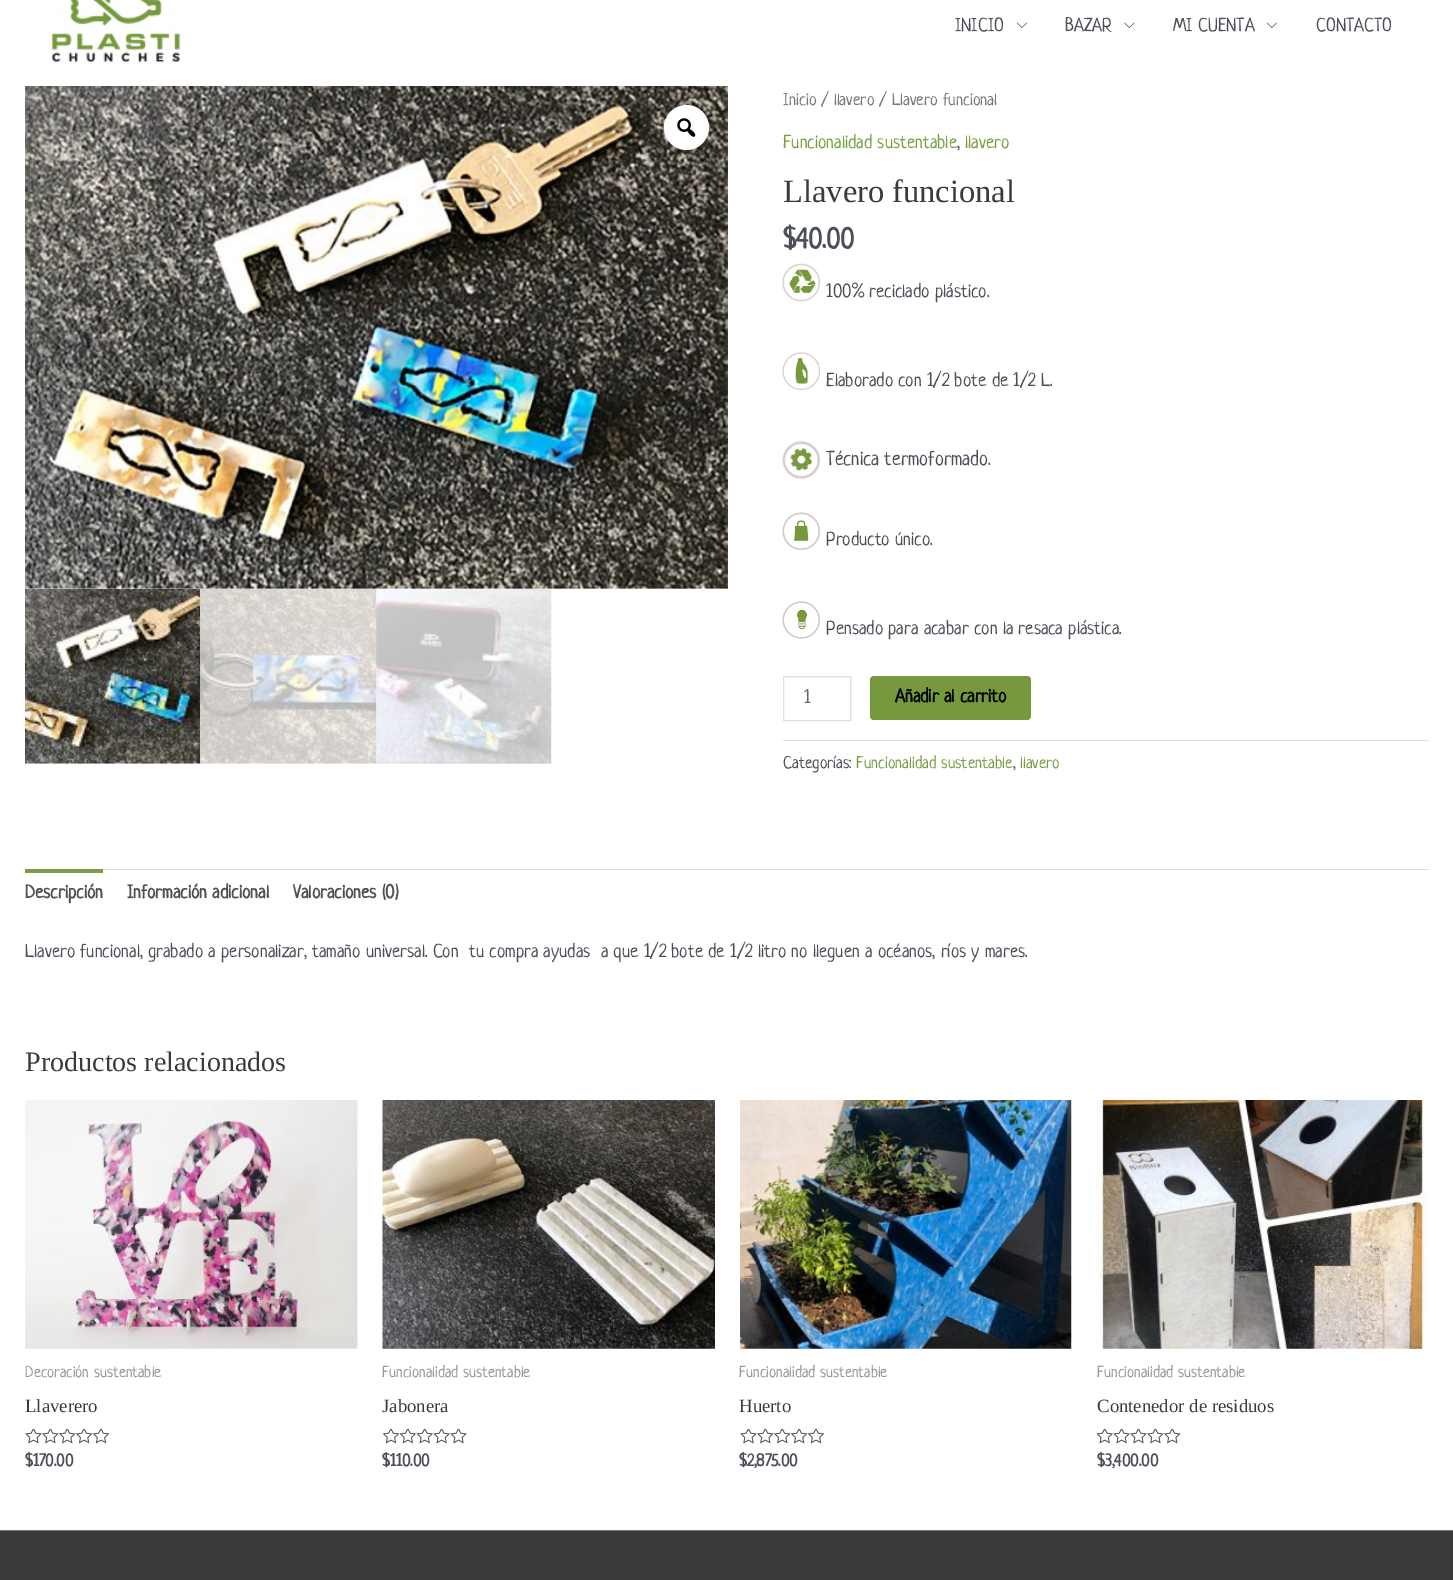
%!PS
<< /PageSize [1453 1580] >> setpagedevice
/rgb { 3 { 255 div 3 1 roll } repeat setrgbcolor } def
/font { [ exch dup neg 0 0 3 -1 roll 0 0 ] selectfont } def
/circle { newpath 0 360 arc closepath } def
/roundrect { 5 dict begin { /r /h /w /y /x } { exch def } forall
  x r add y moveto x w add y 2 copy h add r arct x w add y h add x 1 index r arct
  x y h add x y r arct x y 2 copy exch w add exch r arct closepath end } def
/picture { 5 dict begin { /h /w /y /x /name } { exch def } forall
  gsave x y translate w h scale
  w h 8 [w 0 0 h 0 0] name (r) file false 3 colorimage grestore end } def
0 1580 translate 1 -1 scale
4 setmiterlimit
255 255 255 rgb
0 0 1453 1580 rectfill
(img/1.rgb) 51 0 130 63 picture
(img/2.rgb) 1016 22 11 6 picture
(img/3.rgb) 1124 22 11 6 picture
(img/2.rgb) 1266 22 11 6 picture
(img/5.rgb) 25 588 1 1 picture
(img/4.rgb) 25 86 703 503 picture
686.5 127.5 22.5 circle fill
(img/6.rgb) 677 118 19 19 picture
(img/7.rgb) 25 588 175 176 picture
(img/8.rgb) 200 589 177 175 picture
(img/9.rgb) 376 589 176 175 picture
(img/10.rgb) 782 263 38 39 picture
(img/11.rgb) 782 352 38 38 picture
(img/12.rgb) 782 441 38 38 picture
(img/13.rgb) 782 512 38 38 picture
(img/14.rgb) 782 601 38 38 picture
221 221 221 rgb
783.5 676.5 67 44 rectstroke
118 153 61 rgb
870 676 161 44 4 roundrect fill
[
  [783 740 646 1 221 221 221]
  [103 869 1326 1 221 221 221]
  [25 869 78 4 122 156 67]
] { aload pop rgb rectfill } forall
(img/15.rgb) 25 1100 333 249 picture
(img/16.rgb) 25 1429 85 15 picture
(img/17.rgb) 382 1100 333 249 picture
(img/18.rgb) 383 1429 84 15 picture
(img/19.rgb) 740 1100 332 249 picture
(img/16.rgb) 740 1429 85 15 picture
(img/20.rgb) 1096 1100 331 249 picture
(img/21.rgb) 1096 1429 85 15 picture
122 122 122 rgb
0 1530 1453 1 rectfill
58 58 58 rgb
0 1531 1453 49 rectfill
/Neucha-Regular 18.75 font
75 79 88 rgb
[
  [(INICIO) 955 31]
  [(BAZAR) 1065 31]
  [(MI CUENTA) 1173 31]
  [(CONTACTO) 1316 31]
] { aload pop moveto show } forall
/Neucha-Regular 17.25 font
119 119 119 rgb
783 105 moveto (Inicio / llavero / Llavero funcional) show
/Neucha-Regular 18.75 font
122 156 67 rgb
783 148 moveto (Funcionalidad sustentable) show
75 79 88 rgb
957 148 moveto (,) show
122 156 67 rgb
965 148 moveto (llavero) show
/LiberationSerif-Regular 32.5 font
58 58 58 rgb
783 202 moveto (Llavero funcional) show
/Neucha-Bold 28.1 font
75 79 88 rgb
783 248 moveto ($40.00) show
/Neucha-Regular 18.75 font
826 297 moveto (100% reciclado plástico.) show
826 386 moveto (Elaborado con 1/2 bote de 1/2 L.) show
/Neucha-Regular 20 font
826 465 moveto (Técnica termoformado.) show
/Neucha-Regular 18.75 font
826 545 moveto (Producto único.) show
826 634 moveto (Pensado para acabar con la resaca plástica.) show
102 102 102 rgb
804 703 moveto (1) show
/Neucha-Bold 18.75 font
0 0 0 rgb
895 702 moveto (Añadir al carrito) show
/Neucha-Regular 16.9 font
75 79 88 rgb
783 768 moveto (Categorías:) show
122 156 67 rgb
856 768 moveto (Funcionalidad sustentable) show
75 79 88 rgb
1013 768 moveto (,) show
122 156 67 rgb
1020 768 moveto (llavero) show
/Neucha-Bold 18.75 font
81 81 81 rgb
[
  [(Descripción) 25 898]
  [(Información adicional) 127 898]
  [(Valoraciones \(0\)) 293 898]
] { aload pop moveto show } forall
/Neucha-Regular 18.75 font
75 79 88 rgb
25 957 moveto (Llavero funcional, grabado a personalizar, tamaño universal. Con  tu compra ayudas  a que 1/2 bote de 1/2 litro no lleguen a océanos, ríos y mares.) show
/LiberationSerif-Regular 28.1 font
58 58 58 rgb
25 1071 moveto (Productos relacionados) show
/Neucha-Regular 16 font
147 149 155 rgb
25 1377 moveto (Decoración sustentable) show
/LiberationSerif-Regular 18.75 font
58 58 58 rgb
25 1412 moveto (Llaverero) show
/Neucha-Bold 16.9 font
75 79 88 rgb
25 1466 moveto ($170.00) show
/Neucha-Regular 16 font
147 149 155 rgb
382 1377 moveto (Funcionalidad sustentable) show
/LiberationSerif-Regular 18.75 font
58 58 58 rgb
382 1412 moveto (Jabonera) show
/Neucha-Bold 16.9 font
75 79 88 rgb
382 1466 moveto ($110.00) show
/Neucha-Regular 16 font
147 149 155 rgb
739 1377 moveto (Funcionalidad sustentable) show
/LiberationSerif-Regular 18.75 font
58 58 58 rgb
739 1412 moveto (Huerto) show
/Neucha-Bold 16.9 font
75 79 88 rgb
739 1466 moveto ($2,875.00) show
/Neucha-Regular 16 font
147 149 155 rgb
1097 1377 moveto (Funcionalidad sustentable) show
/LiberationSerif-Regular 18.75 font
58 58 58 rgb
1097 1412 moveto (Contenedor de residuos) show
/Neucha-Bold 16.9 font
75 79 88 rgb
1097 1466 moveto ($3,400.00) show
showpage
